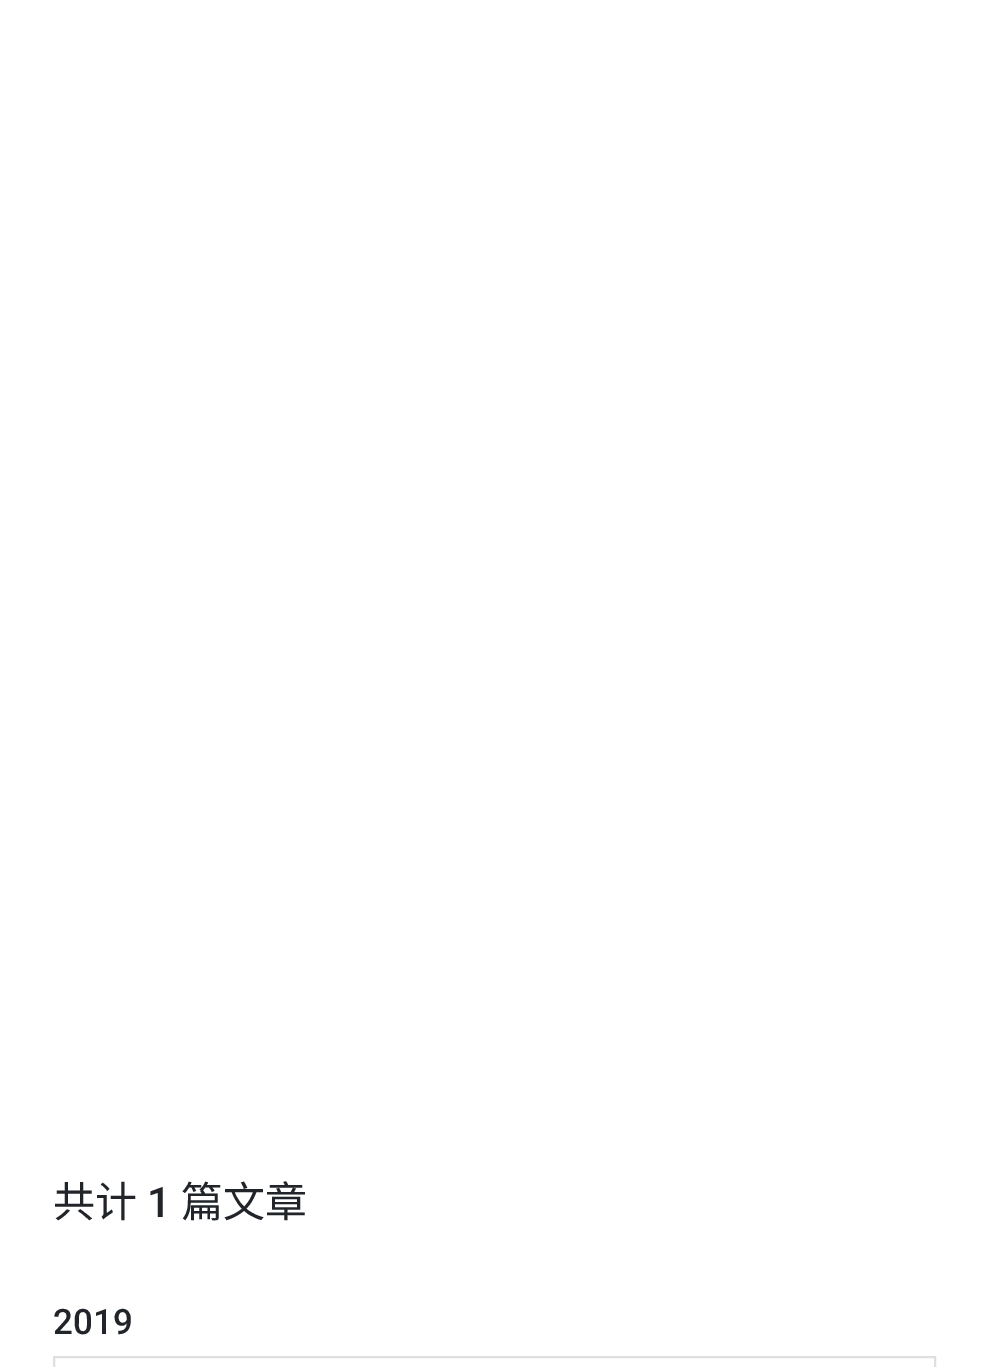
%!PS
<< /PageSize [988 1367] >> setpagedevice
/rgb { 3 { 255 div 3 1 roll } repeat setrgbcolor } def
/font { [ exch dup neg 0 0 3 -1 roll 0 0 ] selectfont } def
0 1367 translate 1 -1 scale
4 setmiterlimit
255 255 255 rgb
0 0 988 1367 rectfill
223 223 223 rgb
2 setlinewidth
54 1357 881 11 rectstroke
/NotoSansCJKSC-Regular 42 font
33 37 41 rgb
53 1217 moveto (共计) show
/Roboto-Medium 42 font
147 1217 moveto (1) show
/NotoSansCJKSC-Regular 42 font
181 1217 moveto (篇文章) show
/Roboto-Medium 35 font
53 1334 moveto (2019) show
showpage
